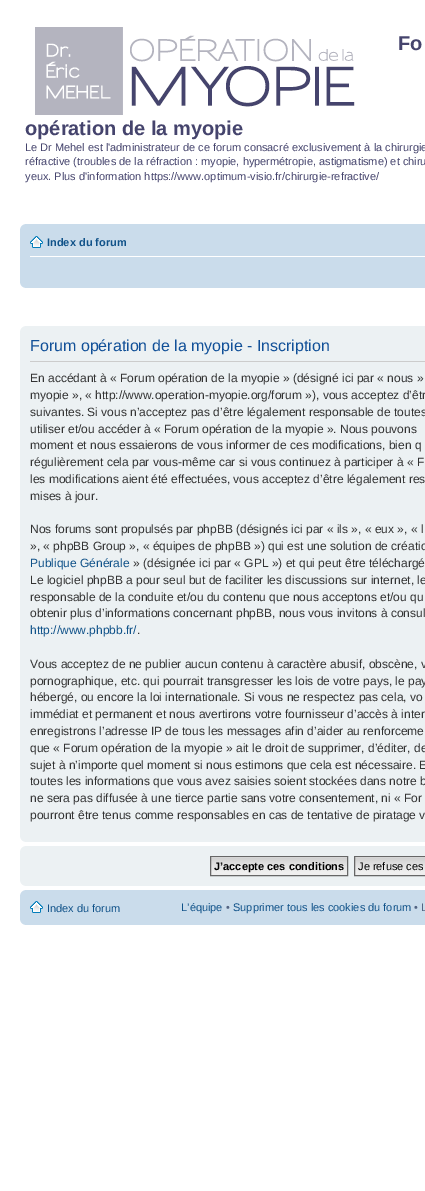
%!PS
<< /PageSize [425 1191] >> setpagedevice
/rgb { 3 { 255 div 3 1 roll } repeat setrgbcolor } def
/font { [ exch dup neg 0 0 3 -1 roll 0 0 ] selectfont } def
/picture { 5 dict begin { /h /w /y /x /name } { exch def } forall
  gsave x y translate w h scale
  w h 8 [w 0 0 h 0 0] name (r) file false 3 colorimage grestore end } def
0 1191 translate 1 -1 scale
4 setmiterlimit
255 255 255 rgb
0 0 425 1191 rectfill
(img/1.rgb) 35 27 320 88 picture
202 220 235 rgb
20 224 405 64 rectfill
(img/2.rgb) 20 224 5 5 picture
255 255 255 rgb
30 256 395 1 rectfill
(img/3.rgb) 30 236 13 12 picture
(img/4.rgb) 20 283 5 5 picture
236 241 243 rgb
20 326 405 516 rectfill
(img/5.rgb) 20 326 5 5 picture
204 204 204 rgb
30 361 395 1 rectfill
(img/6.rgb) 20 837 5 5 picture
236 241 243 rgb
20 846 405 40 rectfill
(img/5.rgb) 20 846 5 5 picture
(img/7.rgb) 211 857 136 18 picture
102 102 102 rgb
210.5 856.5 137 19 rectstroke
(img/8.rgb) 355 857 70 18 picture
354.5 856.5 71 19 rectstroke
(img/6.rgb) 20 881 5 5 picture
202 220 235 rgb
20 890 405 35 rectfill
(img/2.rgb) 20 890 5 5 picture
(img/3.rgb) 30 901 13 12 picture
(img/4.rgb) 20 920 5 5 picture
/LiberationSans-Bold 20 font
69 68 109 rgb
398 50 moveto (Fo) show
25 135 moveto (opération de la myopie) show
/LiberationSans-Regular 11 font
[
  [(Le Dr Mehel est l'administrateur de ce forum consacré exclusivement à la chirurgie) 25 151]
  [(réfractive \(troubles de la réfraction : myopie, hypermétropie, astigmatisme\) et chiru) 25 165]
  [(yeux. Plus d'information https://www.optimum-visio.fr/chirurgie-refractive/) 25 180]
] { aload pop moveto show } forall
/LiberationSans-Bold 11 font
16 82 137 rgb
47 246 moveto (Index du forum) show
/LiberationSans-Regular 16 font
17 80 152 rgb
30 351 moveto (Forum opération de la myopie - Inscription) show
/LiberationSans-Regular 12 font
51 51 51 rgb
[
  [(En accédant à « Forum opération de la myopie » \(désigné ici par « nous ») 30 382]
  [(myopie », « http://www.operation-myopie.org/forum »\), vous acceptez d’êtr) 30 399]
  [(suivantes. Si vous n’acceptez pas d’être légalement responsable de toutes) 30 416]
  [(utiliser et/ou accéder à « Forum opération de la myopie ». Nous pouvons) 30 433]
  [(moment et nous essaierons de vous informer de ces modifications, bien q) 30 449]
  [(régulièrement cela par vous-même car si vous continuez à participer à « F) 30 466]
  [(les modifications aient été effectuées, vous acceptez d’être légalement res) 30 483]
  [(mises à jour.) 30 500]
  [(Nos forums sont propulsés par phpBB \(désignés ici par « ils », « eux », « l) 30 533]
  [(», « phpBB Group », « équipes de phpBB »\) qui est une solution de créatio) 30 550]
] { aload pop moveto show } forall
16 82 137 rgb
30 567 moveto (Publique Générale) show
51 51 51 rgb
[
  [(» \(désignée ici par « GPL »\) et qui peut être téléchargé) 133 567]
  [(Le logiciel phpBB a pour seul but de faciliter les discussions sur internet, le) 30 584]
  [(responsable de la conduite et/ou du contenu que nous acceptons et/ou qu) 30 601]
  [(obtenir plus d’informations concernant phpBB, nous vous invitons à consul) 30 617]
] { aload pop moveto show } forall
16 82 137 rgb
30 634 moveto (http://www.phpbb.fr/) show
51 51 51 rgb
[
  [(.) 137 634]
  [(Vous acceptez de ne publier aucun contenu à caractère abusif, obscène, v) 30 668]
  [(pornographique, etc. qui pourrait transgresser les lois de votre pays, le pay) 30 685]
  [(hébergé, ou encore la loi internationale. Si vous ne respectez pas cela, vo) 30 701]
  [(immédiat et permanent et nous avertirons votre fournisseur d’accès à inter) 30 718]
  [(enregistrons l’adresse IP de tous les messages afin d’aider au renforceme) 30 735]
  [(que « Forum opération de la myopie » ait le droit de supprimer, d’éditer, de) 30 752]
  [(sujet à n’importe quel moment si nous estimons que cela est nécessaire. E) 30 769]
  [(toutes les informations que vous avez saisies soient stockées dans notre b) 30 785]
  [(ne sera pas diffusée à une tierce partie sans votre consentement, ni « For) 30 802]
  [(pourront être tenus comme responsables en cas de tentative de piratage v) 30 819]
] { aload pop moveto show } forall
/LiberationSans-Bold 11 font
0 0 0 rgb
214 870 moveto (J’accepte ces conditions) show
/LiberationSans-Regular 11 font
358 870 moveto (Je refuse ces) show
16 82 137 rgb
47 912 moveto (Index du forum) show
181 911 moveto (L’équipe) show
83 100 130 rgb
226 911 moveto (•) show
16 82 137 rgb
233 911 moveto (Supprimer tous les cookies du forum) show
83 100 130 rgb
414 911 moveto (• L) show
showpage
